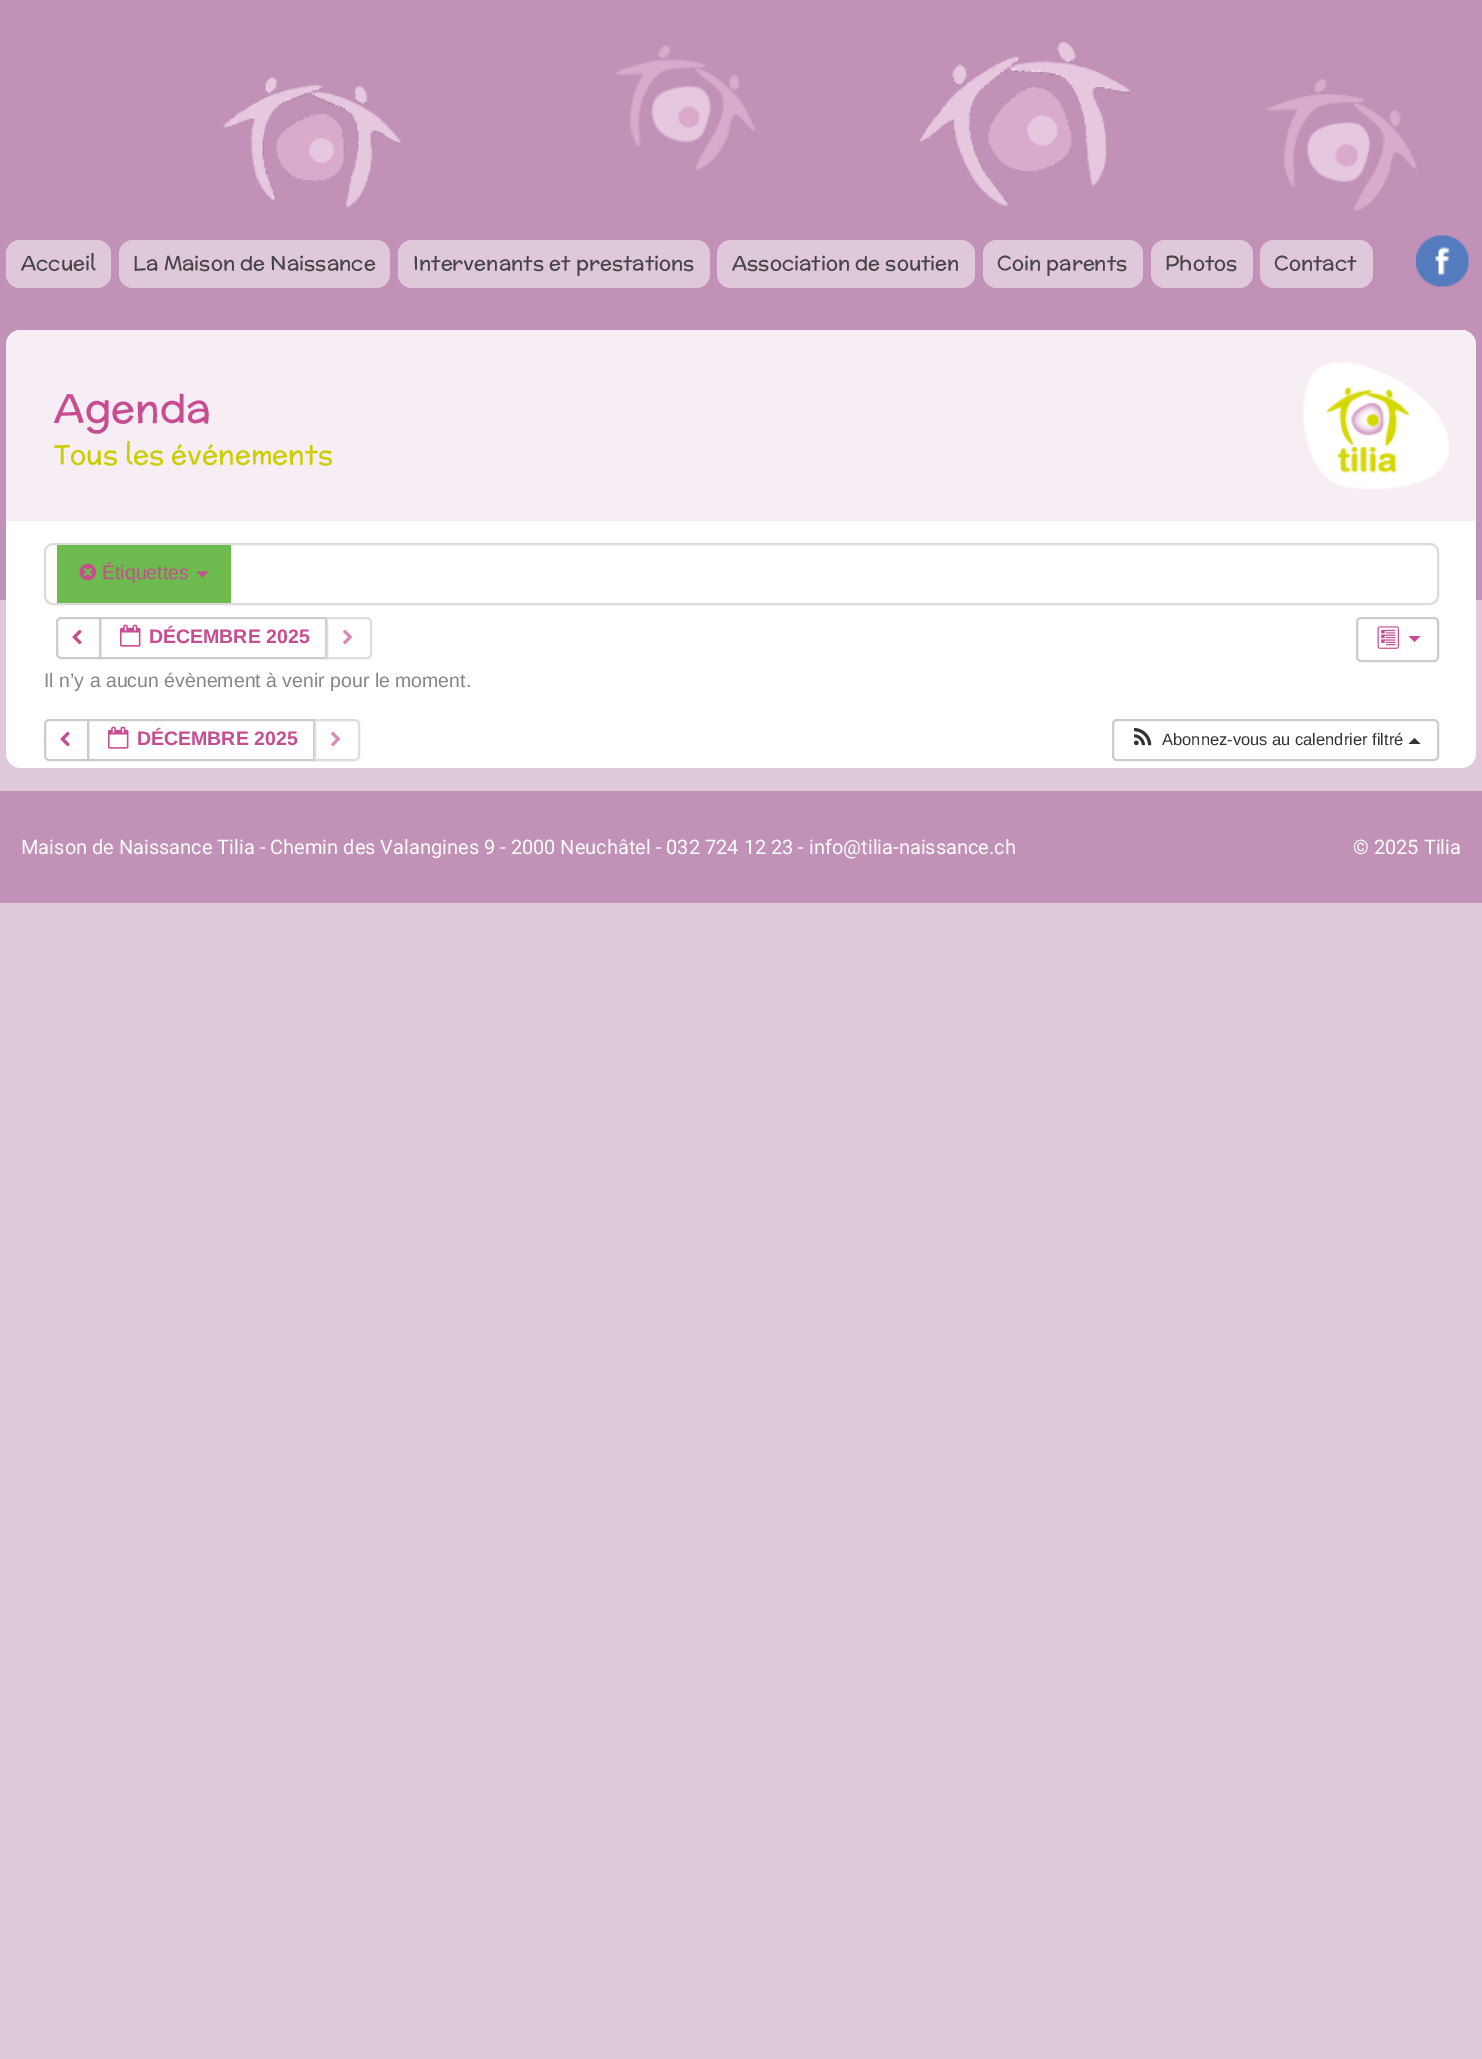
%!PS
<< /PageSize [1482 2059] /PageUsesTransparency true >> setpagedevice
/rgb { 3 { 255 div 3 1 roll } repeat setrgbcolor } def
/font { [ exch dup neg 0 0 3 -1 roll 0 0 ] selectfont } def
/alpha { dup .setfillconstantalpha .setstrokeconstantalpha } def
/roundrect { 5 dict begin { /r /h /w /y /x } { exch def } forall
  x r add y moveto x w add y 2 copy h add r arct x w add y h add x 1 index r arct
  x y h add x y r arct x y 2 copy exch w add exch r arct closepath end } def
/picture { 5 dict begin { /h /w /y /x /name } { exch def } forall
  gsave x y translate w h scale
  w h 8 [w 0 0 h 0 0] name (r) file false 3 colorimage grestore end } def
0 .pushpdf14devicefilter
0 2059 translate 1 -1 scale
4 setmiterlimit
224 200 219 rgb
0 0 1482 2059 rectfill
(img/1.rgb) 0 0 1482 600 picture
6 240 105 48 14 roundrect fill
119 240 271 48 14 roundrect fill
398 240 312 48 14 roundrect fill
717 240 258 48 14 roundrect fill
983 240 160 48 14 roundrect fill
1151 240 102 48 14 roundrect fill
1260 240 113 48 14 roundrect fill
(img/2.rgb) 1416 235 53 52 picture
255 255 255 rgb
6 330 1470 438 15 roundrect fill
247 237 245 rgb
21 330 moveto 1461 330 lineto 1469.5 330 1476 336.5 1476 345 curveto 1476 521 lineto 6 521 lineto 6 345 lineto 6 336.5 12.5 330 21 330 curveto closepath fill
(img/3.rgb) 1303 361 146 128 picture
219 219 219 rgb
2 setlinewidth
45 544 1393 60 8 roundrect stroke
109 187 79 rgb
57 545 174 58 rectfill
(img/4.rgb) 79 563 18 18 picture
198 77 144 rgb
196.5 571.5 moveto 208.5 571.5 lineto 202.5 577.5 lineto closepath fill
204 204 204 rgb
61 618 moveto 100 618 lineto 100 658 lineto 61 658 lineto 59 658 57 656 57 654 curveto 57 622 lineto 57 620 59 618 61 618 curveto closepath stroke
(img/5.rgb) 72 629 10 16 picture
100 618 226 40 rectstroke
(img/6.rgb) 120 624 21 23 picture
0.65 alpha
255 255 255 rgb
326 617 moveto 367 617 lineto 370 617 372 619 372 622 curveto 372 654 lineto 372 657 370 659 367 659 curveto 326 659 lineto closepath fill
204 204 204 rgb
327 618 moveto 367 618 lineto 369 618 371 620 371 622 curveto 371 654 lineto 371 656 369 658 367 658 curveto 327 658 lineto closepath stroke
1 alpha
(img/7.rgb) 343 629 10 16 picture
1357 618 81 43 4 roundrect stroke
(img/8.rgb) 1377 626 22 23 picture
198 77 144 rgb
1408.5 636 moveto 1420.5 636 lineto 1414.5 642 lineto closepath fill
204 204 204 rgb
49 720 moveto 88 720 lineto 88 760 lineto 49 760 lineto 47 760 45 758 45 756 curveto 45 724 lineto 45 722 47 720 49 720 curveto closepath stroke
(img/5.rgb) 60 731 10 16 picture
88 720 226 40 rectstroke
(img/6.rgb) 108 726 21 23 picture
0.65 alpha
255 255 255 rgb
314 719 moveto 355 719 lineto 358 719 360 721 360 724 curveto 360 756 lineto 360 759 358 761 355 761 curveto 314 761 lineto closepath fill
204 204 204 rgb
315 720 moveto 355 720 lineto 357 720 359 722 359 724 curveto 359 756 lineto 359 758 357 760 355 760 curveto 315 760 lineto closepath stroke
1 alpha
(img/7.rgb) 331 731 10 16 picture
1113 720 325 40 4 roundrect stroke
(img/9.rgb) 1134 728 18 18 picture
51 51 51 rgb
1420.5 744 moveto 1408.5 744 lineto 1414.5 738 lineto closepath fill
193 145 183 rgb
0 791 1482 112 rectfill
/McLaren-Regular 20 font
68 68 68 rgb
[
  [(Accueil) 21 270]
  [(La Maison de Naissance) 133 270]
  [(Intervenants et prestations) 413 270]
  [(Association de soutien) 732 270]
  [(Coin parents) 997 270]
  [(Photos) 1165 270]
  [(Contact) 1274 270]
] { aload pop moveto show } forall
/McLaren-Regular 40 font
198 77 144 rgb
54 422 moveto (Agenda) show
/McLaren-Regular 27 font
202 205 0 rgb
54 464 moveto (Tous les événements) show
/LiberationSans-Regular 19.5 font
198 77 144 rgb
102 579 moveto (Étiquettes) show
/LiberationSans-Bold 19.5 font
149 643 moveto (DÉCEMBRE 2025) show
/LiberationSans-Regular 19.5 font
133 133 133 rgb
44 687 moveto (Il n’y a aucun évènement à venir pour le moment.) show
/LiberationSans-Bold 19.5 font
198 77 144 rgb
137 745 moveto (DÉCEMBRE 2025) show
/LiberationSans-Regular 16.5 font
51 51 51 rgb
1162 745 moveto (Abonnez-vous au calendrier filtré) show
/Roboto-Regular 20 font
255 255 255 rgb
21 854 moveto (Maison de Naissance Tilia - Chemin des Valangines 9 - 2000 Neuchâtel - 032 724 12 23 - info@tilia-naissance.ch) show
1353 854 moveto (© 2025 Tilia) show
.poppdf14devicefilter showpage
